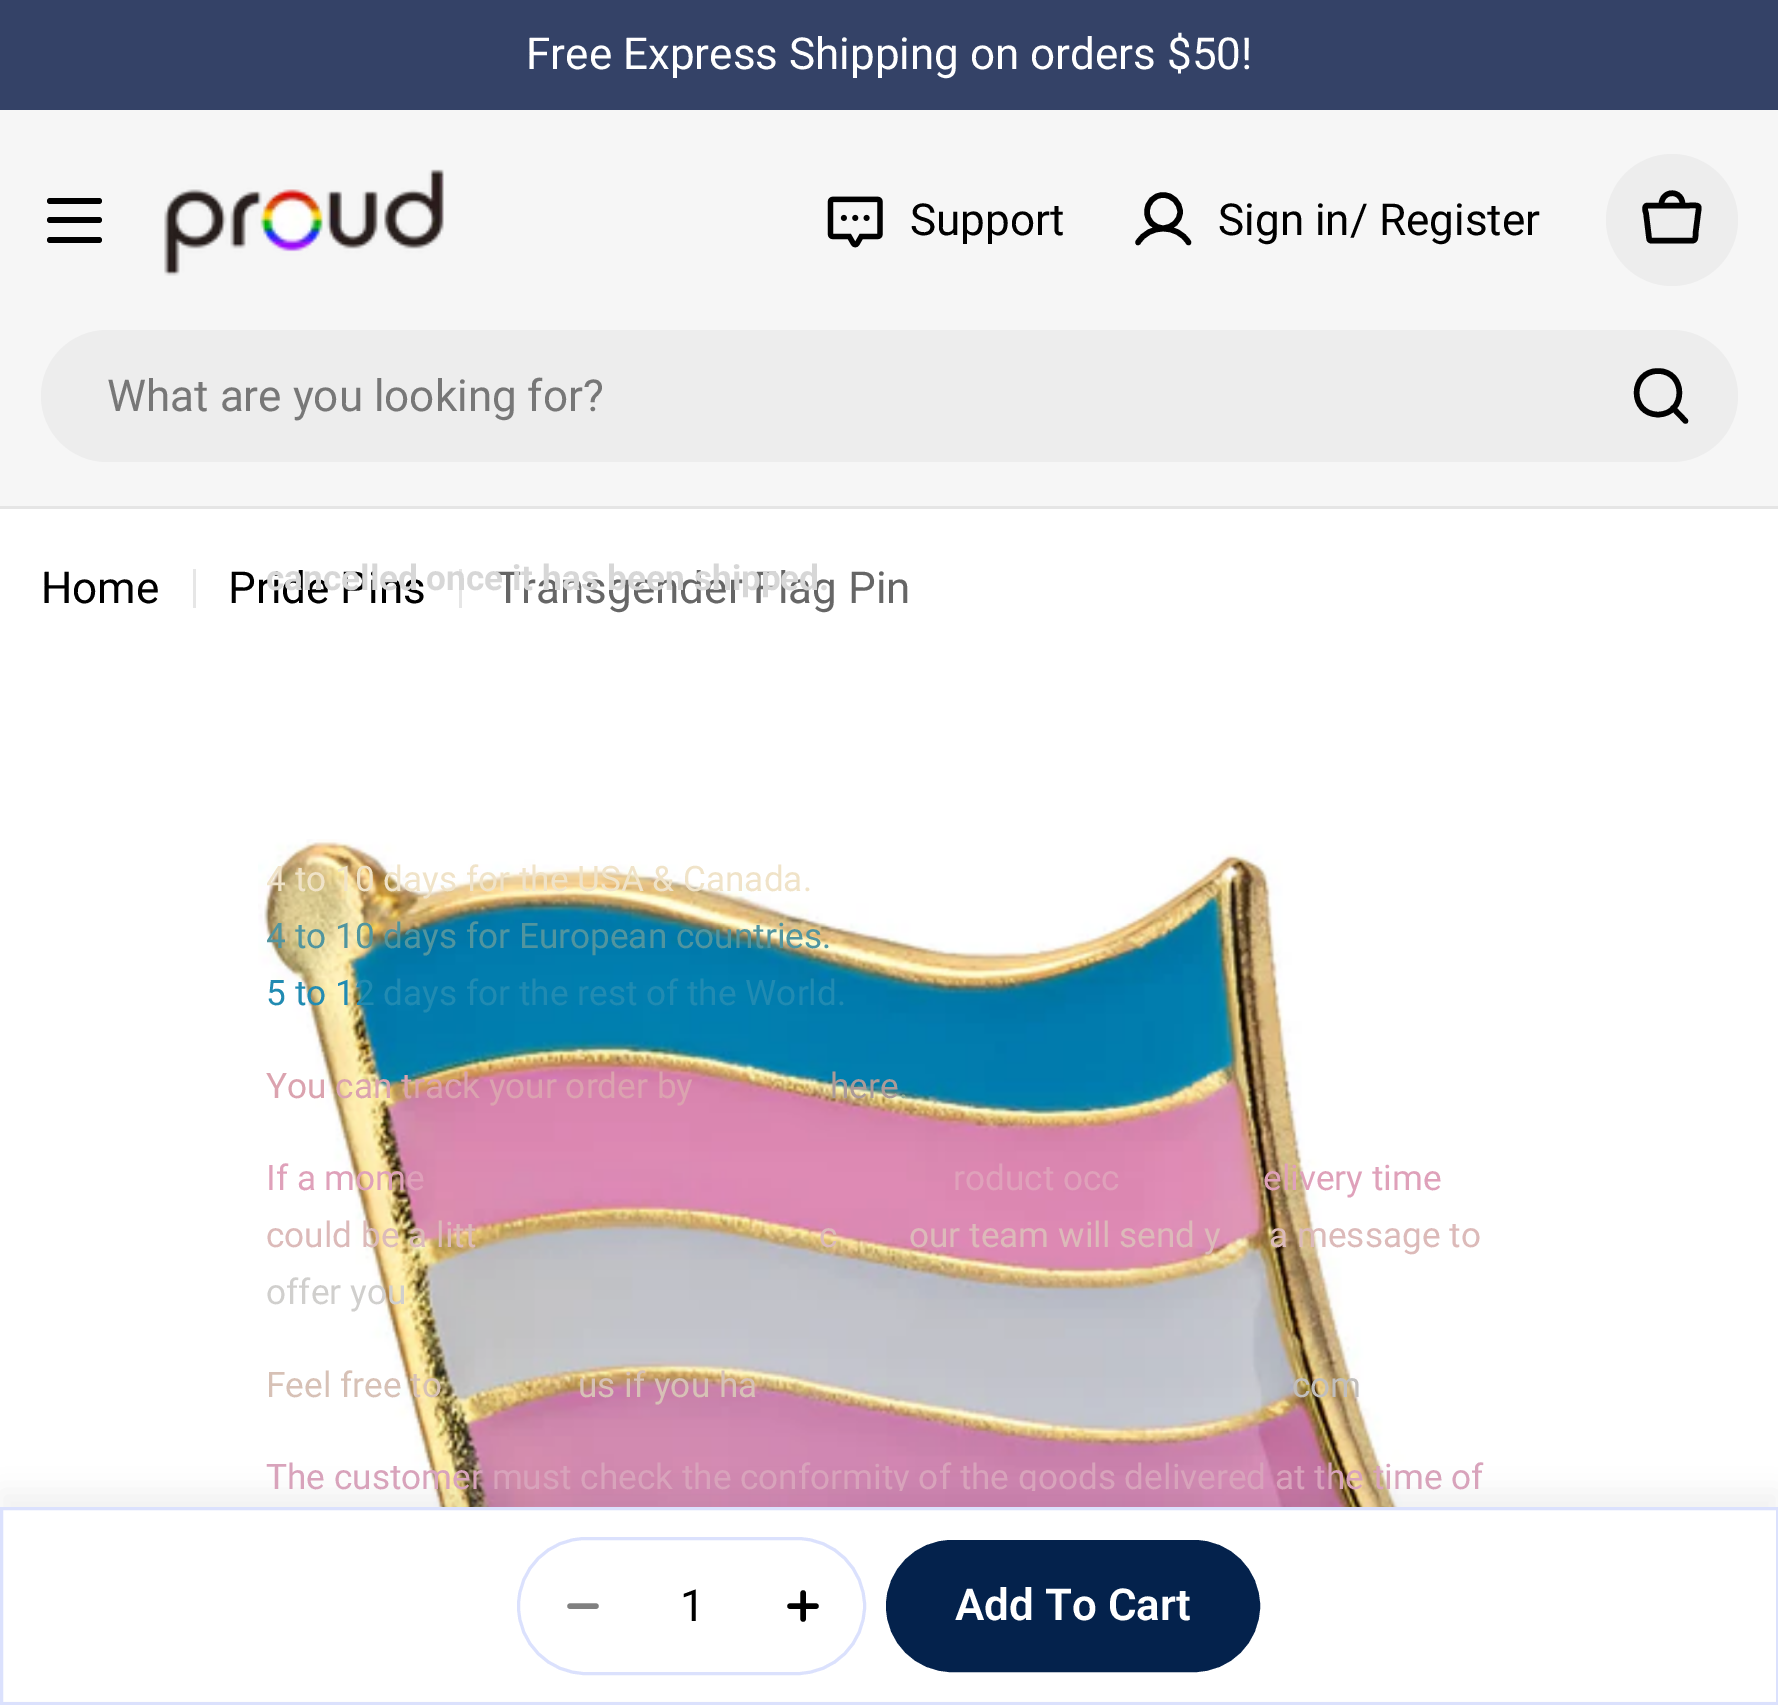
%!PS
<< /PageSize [1778 1705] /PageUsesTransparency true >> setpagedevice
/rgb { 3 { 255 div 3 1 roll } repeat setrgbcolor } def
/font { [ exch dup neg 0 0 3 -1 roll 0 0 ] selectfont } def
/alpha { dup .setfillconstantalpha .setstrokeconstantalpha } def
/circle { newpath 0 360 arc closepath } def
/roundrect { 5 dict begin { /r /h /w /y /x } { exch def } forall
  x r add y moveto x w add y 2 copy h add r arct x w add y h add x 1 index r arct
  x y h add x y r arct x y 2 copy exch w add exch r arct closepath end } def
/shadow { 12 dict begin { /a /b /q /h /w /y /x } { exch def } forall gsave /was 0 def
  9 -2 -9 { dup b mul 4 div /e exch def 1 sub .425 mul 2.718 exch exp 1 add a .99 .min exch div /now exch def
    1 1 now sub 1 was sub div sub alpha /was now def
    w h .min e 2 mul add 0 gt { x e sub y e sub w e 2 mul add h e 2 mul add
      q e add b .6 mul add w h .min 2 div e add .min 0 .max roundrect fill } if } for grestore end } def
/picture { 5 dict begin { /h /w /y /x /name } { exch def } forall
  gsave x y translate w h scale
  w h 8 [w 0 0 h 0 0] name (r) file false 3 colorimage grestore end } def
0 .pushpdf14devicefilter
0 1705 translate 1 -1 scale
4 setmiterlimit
255 255 255 rgb
0 0 1778 1705 rectfill
[
  [0 0 1778 110 52 66 103]
  [0 506 1778 3 229 229 229]
  [0 110 1778 396 246 246 246]
] { aload pop rgb rectfill } forall
0 0 0 rgb
47 217 55 6 3 roundrect fill
47 198 55 6 3 roundrect fill
47 237 55 6 3 roundrect fill
(img/1.rgb) 164 169 280 107 picture
(img/2.rgb) 827 196 56 52 picture
5.5 setlinewidth
1 setlinecap
1 setlinejoin
1163 228 moveto 1172.5 228 1180 221 1180 212 curveto 1180 202.5 1172.5 195 1163 195 curveto 1154 195 1147 202.5 1147 212 curveto 1147 221 1154 228 1163 228 curveto closepath 1138 242.5 moveto 1149 224 1177.5 224 1188.5 242.5 curveto stroke
237 237 237 rgb
1672 220 66 circle fill
0 0 0 rgb
1693 240.5 moveto 1658 240.5 lineto 1648.5 240.5 1649.5 242.5 1648.5 233.5 curveto 1646 213 lineto 1645.5 212 1643.5 205.5 1647.5 205.5 curveto 1688.5 205.5 lineto 1701.5 205.5 1699 204 1697.5 218 curveto 1695.5 233.5 lineto 1695.5 235 1696 240.5 1693 240.5 curveto closepath 1661.5 205.5 moveto 1661.5 203 1661.5 201 1663 198.5 curveto 1667 191 1678.5 191.5 1681.5 199.5 curveto 1682.5 201.5 1682.5 203.5 1682.5 205.5 curveto stroke
237 237 237 rgb
41 330 1697 132 66 roundrect fill
0 0 0 rgb
1658 414.5 moveto 1686.5 414.5 1686.5 371 1658 371 curveto 1629.5 371 1629.5 414.5 1658 414.5 curveto closepath 1673 408 moveto 1685.5 421 lineto stroke
(img/3.rgb) 258 839 1241 668 picture
0 1491 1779 198 0 14 0.05 shadow
255 255 255 rgb
3 1510 1773 191 rectfill
219 225 253 rgb
3 setlinewidth
0 setlinecap
0 setlinejoin
1.5 1508.5 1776 195 rectstroke
518.5 1538.5 346 135 67.5 roundrect stroke
128 128 128 rgb
5.5 setlinewidth
1 setlinecap
1 setlinejoin
570 1606 moveto 596 1606 lineto stroke
0 0 0 rgb
790 1606 moveto 816 1606 lineto 803 1593 moveto 803 1619 lineto stroke
4 34 76 rgb
887.5 1541.5 371 129 64.5 roundrect gsave fill grestore
3 setlinewidth
0 setlinecap
0 setlinejoin
stroke
230 230 230 rgb
193 569 3 39 rectfill
459 569 3 39 rectfill
/Roboto-Regular 44 font
255 255 255 rgb
526 69 moveto (Free Express Shipping on orders $50!) show
0 0 0 rgb
910 235 moveto (Support) show
1218 235 moveto (Sign in/ Register) show
119 119 119 rgb
107 411 moveto (What are you looking for?) show
/Roboto-Regular 35.2 font
240 227 200 rgb
266 891 moveto (4 to 10 days for the USA & Canada.) show
81 149 159 rgb
266 948 moveto (4 to 10 days for European countries.) show
33 139 178 rgb
266 1005 moveto (5 to 12 days for the rest of the World.) show
219 163 175 rgb
266 1098 moveto (You can track your order by) show
171 154 152 rgb
830 1098 moveto (here) show
141 171 151 rgb
899 1098 moveto (.) show
223 161 186 rgb
[
  [(If a mome) 266 1190]
  [(roduct occ) 953 1190]
  [(elivery time) 1263 1190]
] { aload pop moveto show } forall
220 186 185 rgb
[
  [(could be a litt) 266 1247]
  [(c) 819 1247]
  [(our team will send y) 909 1247]
  [(a message to) 1269 1247]
] { aload pop moveto show } forall
208 207 205 rgb
266 1304 moveto (offer you) show
215 193 182 rgb
266 1397 moveto (Feel free to) show
578 1397 moveto (us if you ha) show
193 190 188 rgb
1292 1397 moveto (com) show
gsave
212 215 1356 1276 rectclip
216 163 187 rgb
266 1489 moveto (The customer must check the conformity of the goods delivered at the time of) show
grestore
/Roboto-Regular 44 font
0 0 0 rgb
680 1621 moveto (1) show
/Roboto-SemiBold 44 font
255 255 255 rgb
955 1620 moveto (Add To Cart) show
/Roboto-Regular 44 font
0 0 0 rgb
41 603 moveto (Home) show
228 603 moveto (Pride Pins) show
102 102 102 rgb
495 603 moveto (Transgender Flag Pin) show
/Roboto-Bold 35.2 font
215 215 215 rgb
266 590 moveto (cancelled once it has been shipped.) show
.poppdf14devicefilter showpage
